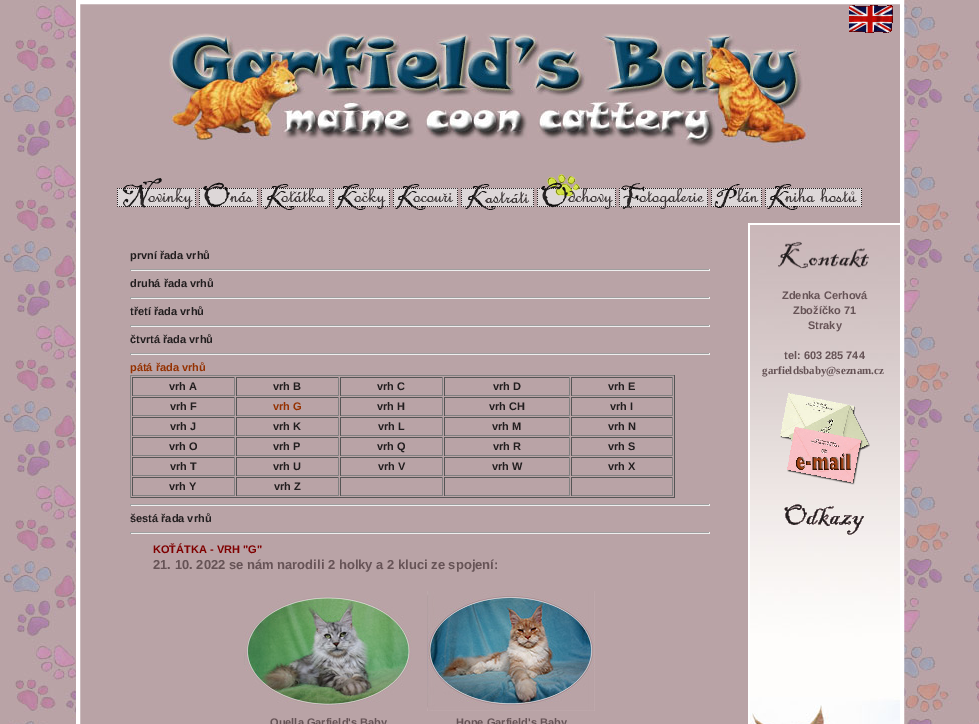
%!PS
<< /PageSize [979 724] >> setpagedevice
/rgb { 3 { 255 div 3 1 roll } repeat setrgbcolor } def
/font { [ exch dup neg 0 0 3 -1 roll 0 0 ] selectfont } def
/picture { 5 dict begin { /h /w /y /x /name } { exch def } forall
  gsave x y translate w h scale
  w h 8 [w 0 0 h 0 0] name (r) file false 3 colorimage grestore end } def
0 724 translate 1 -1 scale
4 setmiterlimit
255 255 255 rgb
0 0 979 724 rectfill
(img/1.rgb) 0 0 979 724 picture
185 163 166 rgb
80 4 820 720 rectfill
(img/2.rgb) 169 33 640 115 picture
255 255 255 rgb
4 setlinewidth
78 2 824 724 rectstroke
(img/3.rgb) 849 5 44 28 picture
(img/4.rgb) 117 178 79 31 picture
(img/5.rgb) 199 182 59 26 picture
(img/6.rgb) 261 184 69 26 picture
(img/7.rgb) 333 184 57 26 picture
(img/8.rgb) 393 184 65 26 picture
(img/9.rgb) 461 184 73 26 picture
(img/10.rgb) 537 174 79 35 picture
(img/11.rgb) 619 183 89 26 picture
(img/12.rgb) 711 184 51 24 picture
(img/13.rgb) 765 184 97 26 picture
[
  [130 269 580 1 159 159 159]
  [709 269 1 2 238 238 238]
  [130 270 580 1 238 238 238]
  [130 269 1 2 159 159 159]
  [130 297 580 1 159 159 159]
  [709 297 1 2 238 238 238]
  [130 298 580 1 238 238 238]
  [130 297 1 2 159 159 159]
  [130 325 580 1 159 159 159]
  [709 325 1 2 238 238 238]
  [130 326 580 1 238 238 238]
  [130 325 1 2 159 159 159]
  [130 353 580 1 159 159 159]
  [709 353 1 2 238 238 238]
  [130 354 580 1 238 238 238]
  [130 353 1 2 159 159 159]
  [130 375 545 1 128 128 128]
  [674 375 1 123 85 85 85]
  [130 497 545 1 85 85 85]
  [130 375 1 123 128 128 128]
  [132 377 103 1 85 85 85]
  [234 377 1 19 128 128 128]
  [132 395 103 1 128 128 128]
  [132 377 1 19 85 85 85]
  [236 377 103 1 85 85 85]
  [338 377 1 19 128 128 128]
  [236 395 103 1 128 128 128]
  [236 377 1 19 85 85 85]
  [340 377 103 1 85 85 85]
  [442 377 1 19 128 128 128]
  [340 395 103 1 128 128 128]
  [340 377 1 19 85 85 85]
  [444 377 126 1 85 85 85]
  [569 377 1 19 128 128 128]
  [444 395 126 1 128 128 128]
  [444 377 1 19 85 85 85]
  [571 377 102 1 85 85 85]
  [672 377 1 19 128 128 128]
  [571 395 102 1 128 128 128]
  [571 377 1 19 85 85 85]
  [132 397 103 1 85 85 85]
  [234 397 1 19 128 128 128]
  [132 415 103 1 128 128 128]
  [132 397 1 19 85 85 85]
  [236 397 103 1 85 85 85]
  [338 397 1 19 128 128 128]
  [236 415 103 1 128 128 128]
  [236 397 1 19 85 85 85]
  [340 397 103 1 85 85 85]
  [442 397 1 19 128 128 128]
  [340 415 103 1 128 128 128]
  [340 397 1 19 85 85 85]
  [444 397 126 1 85 85 85]
  [569 397 1 19 128 128 128]
  [444 415 126 1 128 128 128]
  [444 397 1 19 85 85 85]
  [571 397 102 1 85 85 85]
  [672 397 1 19 128 128 128]
  [571 415 102 1 128 128 128]
  [571 397 1 19 85 85 85]
  [132 417 103 1 85 85 85]
  [234 417 1 19 128 128 128]
  [132 435 103 1 128 128 128]
  [132 417 1 19 85 85 85]
  [236 417 103 1 85 85 85]
  [338 417 1 19 128 128 128]
  [236 435 103 1 128 128 128]
  [236 417 1 19 85 85 85]
  [340 417 103 1 85 85 85]
  [442 417 1 19 128 128 128]
  [340 435 103 1 128 128 128]
  [340 417 1 19 85 85 85]
  [444 417 126 1 85 85 85]
  [569 417 1 19 128 128 128]
  [444 435 126 1 128 128 128]
  [444 417 1 19 85 85 85]
  [571 417 102 1 85 85 85]
  [672 417 1 19 128 128 128]
  [571 435 102 1 128 128 128]
  [571 417 1 19 85 85 85]
  [132 437 103 1 85 85 85]
  [234 437 1 19 128 128 128]
  [132 455 103 1 128 128 128]
  [132 437 1 19 85 85 85]
  [236 437 103 1 85 85 85]
  [338 437 1 19 128 128 128]
  [236 455 103 1 128 128 128]
  [236 437 1 19 85 85 85]
  [340 437 103 1 85 85 85]
  [442 437 1 19 128 128 128]
  [340 455 103 1 128 128 128]
  [340 437 1 19 85 85 85]
  [444 437 126 1 85 85 85]
  [569 437 1 19 128 128 128]
  [444 455 126 1 128 128 128]
  [444 437 1 19 85 85 85]
  [571 437 102 1 85 85 85]
  [672 437 1 19 128 128 128]
  [571 455 102 1 128 128 128]
  [571 437 1 19 85 85 85]
  [132 457 103 1 85 85 85]
  [234 457 1 19 128 128 128]
  [132 475 103 1 128 128 128]
  [132 457 1 19 85 85 85]
  [236 457 103 1 85 85 85]
  [338 457 1 19 128 128 128]
  [236 475 103 1 128 128 128]
  [236 457 1 19 85 85 85]
  [340 457 103 1 85 85 85]
  [442 457 1 19 128 128 128]
  [340 475 103 1 128 128 128]
  [340 457 1 19 85 85 85]
  [444 457 126 1 85 85 85]
  [569 457 1 19 128 128 128]
  [444 475 126 1 128 128 128]
  [444 457 1 19 85 85 85]
  [571 457 102 1 85 85 85]
  [672 457 1 19 128 128 128]
  [571 475 102 1 128 128 128]
  [571 457 1 19 85 85 85]
  [132 477 103 1 85 85 85]
  [234 477 1 19 128 128 128]
  [132 495 103 1 128 128 128]
  [132 477 1 19 85 85 85]
  [236 477 103 1 85 85 85]
  [338 477 1 19 128 128 128]
  [236 495 103 1 128 128 128]
  [236 477 1 19 85 85 85]
  [340 477 103 1 85 85 85]
  [442 477 1 19 128 128 128]
  [340 495 103 1 128 128 128]
  [340 477 1 19 85 85 85]
  [444 477 126 1 85 85 85]
  [569 477 1 19 128 128 128]
  [444 495 126 1 128 128 128]
  [444 477 1 19 85 85 85]
  [571 477 102 1 85 85 85]
  [672 477 1 19 128 128 128]
  [571 495 102 1 128 128 128]
  [571 477 1 19 85 85 85]
  [130 504 580 1 159 159 159]
  [709 504 1 2 238 238 238]
  [130 505 580 1 238 238 238]
  [130 504 1 2 159 159 159]
  [130 532 580 1 159 159 159]
  [709 532 1 2 238 238 238]
  [130 533 580 1 238 238 238]
  [130 532 1 2 159 159 159]
] { aload pop rgb rectfill } forall
(img/14.rgb) 244 594 168 115 picture
(img/15.rgb) 427 591 168 120 picture
(img/16.rgb) 750 225 150 499 picture
255 255 255 rgb
748 223 152 2 rectfill
748 223 2 501 rectfill
(img/17.rgb) 778 241 91 28 picture
(img/18.rgb) 780 393 90 92 picture
(img/19.rgb) 784 504 80 31 picture
/LiberationSans-Bold 11 font
34 30 31 rgb
[
  [(první řada vrhů) 130 259]
  [(druhá řada vrhů) 130 287]
  [(třetí řada vrhů) 130 315]
  [(čtvrtá řada vrhů) 130 343]
] { aload pop moveto show } forall
149 49 0 rgb
130 371 moveto (pátá řada vrhů) show
34 30 31 rgb
[
  [(vrh A) 169 390]
  [(vrh B) 273 390]
  [(vrh C) 377 390]
  [(vrh D) 493 390]
  [(vrh E) 608 390]
  [(vrh F) 170 410]
] { aload pop moveto show } forall
149 49 0 rgb
273 410 moveto (vrh G) show
34 30 31 rgb
[
  [(vrh H) 377 410]
  [(vrh CH) 489 410]
  [(vrh I) 610 410]
  [(vrh J) 170 430]
  [(vrh K) 273 430]
  [(vrh L) 378 430]
  [(vrh M) 492 430]
  [(vrh N) 608 430]
  [(vrh O) 169 450]
  [(vrh P) 273 450]
  [(vrh Q) 377 450]
  [(vrh R) 493 450]
  [(vrh S) 608 450]
  [(vrh T) 170 470]
  [(vrh U) 273 470]
  [(vrh V) 378 470]
  [(vrh W) 492 470]
  [(vrh X) 608 470]
  [(vrh Y) 169 490]
  [(vrh Z) 274 490]
  [(šestá řada vrhů) 130 522]
] { aload pop moveto show } forall
128 0 0 rgb
153 553 moveto (KOŤÁTKA - VRH "G") show
/LiberationSans-Bold 13 font
102 83 86 rgb
153 569 moveto (21. 10. 2022 se nám narodili 2 holky a 2 kluci ze spojení:) show
/LiberationSans-Bold 11 font
[
  [(Quella Garfield's Baby) 270 726]
  [(Hope Garfield's Baby) 456 726]
  [(Zdenka Cerhová) 782 299]
  [(Zbožíčko 71) 793 314]
  [(Straky) 808 329]
  [(tel: 603 285 744) 784 359]
] { aload pop moveto show } forall
/LiberationSerif-Bold 11 font
762 374 moveto (garfieldsbaby@seznam.cz) show
showpage
